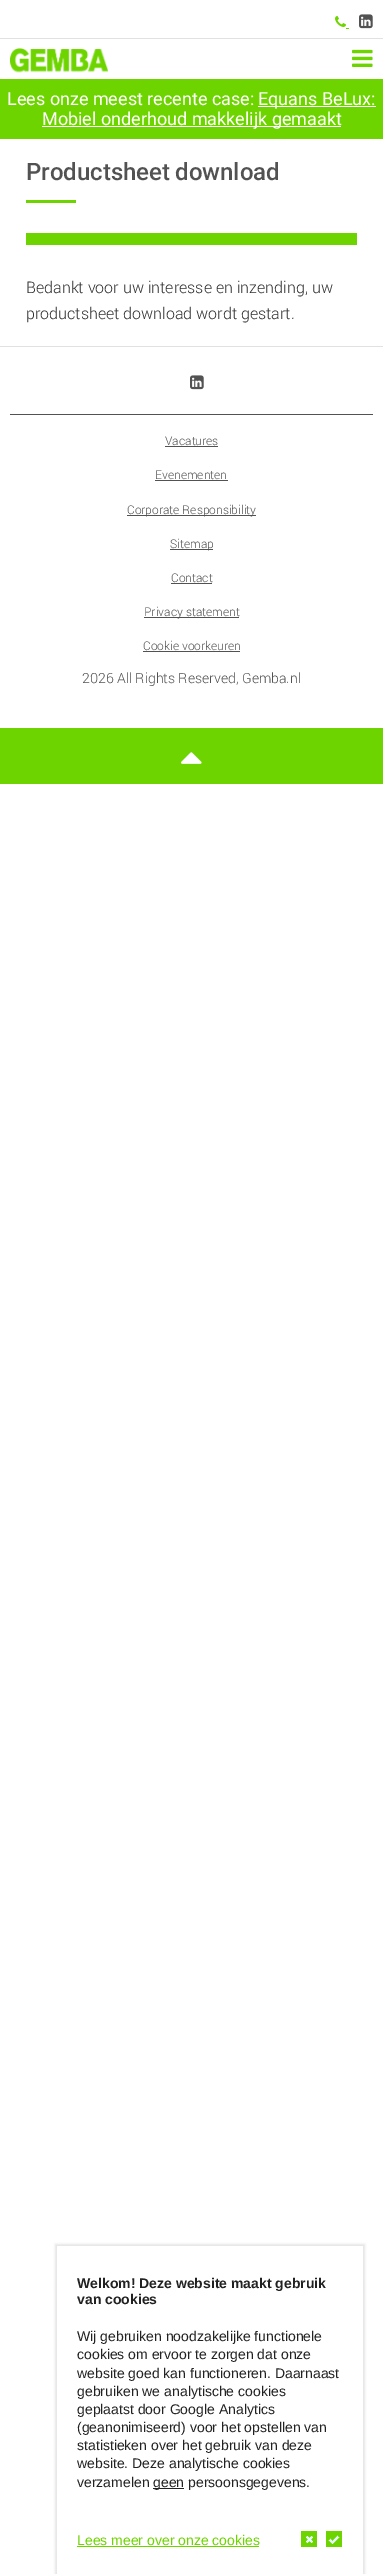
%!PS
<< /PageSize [383 2574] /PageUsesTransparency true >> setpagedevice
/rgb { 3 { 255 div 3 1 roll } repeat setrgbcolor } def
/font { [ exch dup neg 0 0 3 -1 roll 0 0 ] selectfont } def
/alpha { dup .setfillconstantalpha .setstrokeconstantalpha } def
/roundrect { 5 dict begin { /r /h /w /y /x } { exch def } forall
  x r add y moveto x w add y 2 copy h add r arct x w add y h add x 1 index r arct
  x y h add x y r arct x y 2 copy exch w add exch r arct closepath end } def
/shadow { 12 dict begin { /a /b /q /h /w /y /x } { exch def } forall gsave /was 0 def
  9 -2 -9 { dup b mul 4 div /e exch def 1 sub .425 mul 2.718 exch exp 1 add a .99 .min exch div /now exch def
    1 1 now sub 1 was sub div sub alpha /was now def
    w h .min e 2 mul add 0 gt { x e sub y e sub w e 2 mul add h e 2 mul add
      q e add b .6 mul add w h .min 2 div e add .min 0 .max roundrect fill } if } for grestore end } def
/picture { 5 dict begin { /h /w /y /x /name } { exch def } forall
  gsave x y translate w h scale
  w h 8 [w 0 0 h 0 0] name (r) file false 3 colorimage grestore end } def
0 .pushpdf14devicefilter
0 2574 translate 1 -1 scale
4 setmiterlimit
255 255 255 rgb
0 0 383 2574 rectfill
225 225 225 rgb
0 38 383 1 rectfill
(img/1.rgb) 335 16 11 11 picture
110 212 0 rgb
346 28 3 1 rectfill
(img/2.rgb) 359 14 14 15 picture
(img/3.rgb) 10 48 98 25 picture
(img/4.rgb) 352 49 21 18 picture
[
  [0 79 383 60 110 212 0]
  [258 106 118 1 255 255 255]
  [42 126 299 1 255 255 255]
  [26 200 50 3 110 212 0]
  [26 233 331 12 110 212 0]
  [0 346 383 1 225 225 225]
  [10 414 363 1 82 82 82]
] { aload pop rgb rectfill } forall
(img/2.rgb) 190 375 14 15 picture
[
  [165 446 53 1 82 82 82]
  [155 480 73 1 82 82 82]
  [127 515 129 1 82 82 82]
  [170 549 43 1 82 82 82]
  [171 583 41 1 82 82 82]
  [144 617 95 1 82 82 82]
  [143 651 97 1 82 82 82]
  [0 728 383 56 110 212 0]
] { aload pop rgb rectfill } forall
(img/5.rgb) 181 752 21 12 picture
gsave
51 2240 moveto 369 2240 lineto 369 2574 lineto 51 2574 lineto closepath 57 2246 moveto 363 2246 lineto 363 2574 lineto 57 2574 lineto closepath eoclip newpath
0 0 0 rgb
55 2244 310 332 0 1 0.1 shadow
grestore
[
  [153 2488 31 1 34 34 34]
  [77 2546 182 1 110 212 0]
  [301 2531 16 16 110 212 0]
] { aload pop rgb rectfill } forall
(img/6.rgb) 306 2536 7 7 picture
326 2531 16 16 rectfill
(img/7.rgb) 328 2535 12 9 picture
/Roboto-Regular 18 font
255 255 255 rgb
[
  [(Lees onze meest recente case:) 7 105]
  [(Equans BeLux:) 258 105]
  [(Mobiel onderhoud makkelijk gemaakt) 42 125]
] { aload pop moveto show } forall
/Roboto-Medium 24 font
82 82 82 rgb
26 180 moveto -1 0 32 (Productsheet download) widthshow
/Roboto-Light 16 font
49 49 49 rgb
26 293 moveto (Bedankt voor uw interesse en inzending, uw) show
26 319 moveto (productsheet download wordt gestart.) show
/Roboto-Light 12 font
82 82 82 rgb
[
  [(Vacatures) 165 445]
  [(Evenementen) 155 479]
  [(Corporate Responsibility) 127 514]
  [(Sitemap) 170 548]
  [(Contact) 171 582]
  [(Privacy statement) 144 616]
  [(Cookie voorkeuren) 143 650]
] { aload pop moveto show } forall
/Roboto-Light 14 font
82 683 moveto (2026 All Rights Reserved, Gemba.nl) show
/LiberationSans-Bold 14 font
34 34 34 rgb
77 2288 moveto (Welkom! Deze website maakt gebruik) show
77 2304 moveto (van cookies) show
/LiberationSans-Regular 14 font
[
  [(Wij gebruiken noodzakelijke functionele) 77 2341]
  [(cookies om ervoor te zorgen dat onze) 77 2359]
  [(website goed kan functioneren. Daarnaast) 77 2378]
  [(gebruiken we analytische cookies) 77 2396]
  [(geplaatst door Google Analytics) 77 2414]
  [(\(geanonimiseerd\) voor het opstellen van) 77 2432]
  [(statistieken over het gebruik van deze) 77 2450]
  [(website. Deze analytische cookies) 77 2468]
  [(verzamelen) 77 2487]
  [(geen persoonsgegevens.) 153 2487]
] { aload pop moveto show } forall
110 212 0 rgb
77 2545 moveto (Lees meer over onze cookies) show
.poppdf14devicefilter showpage
